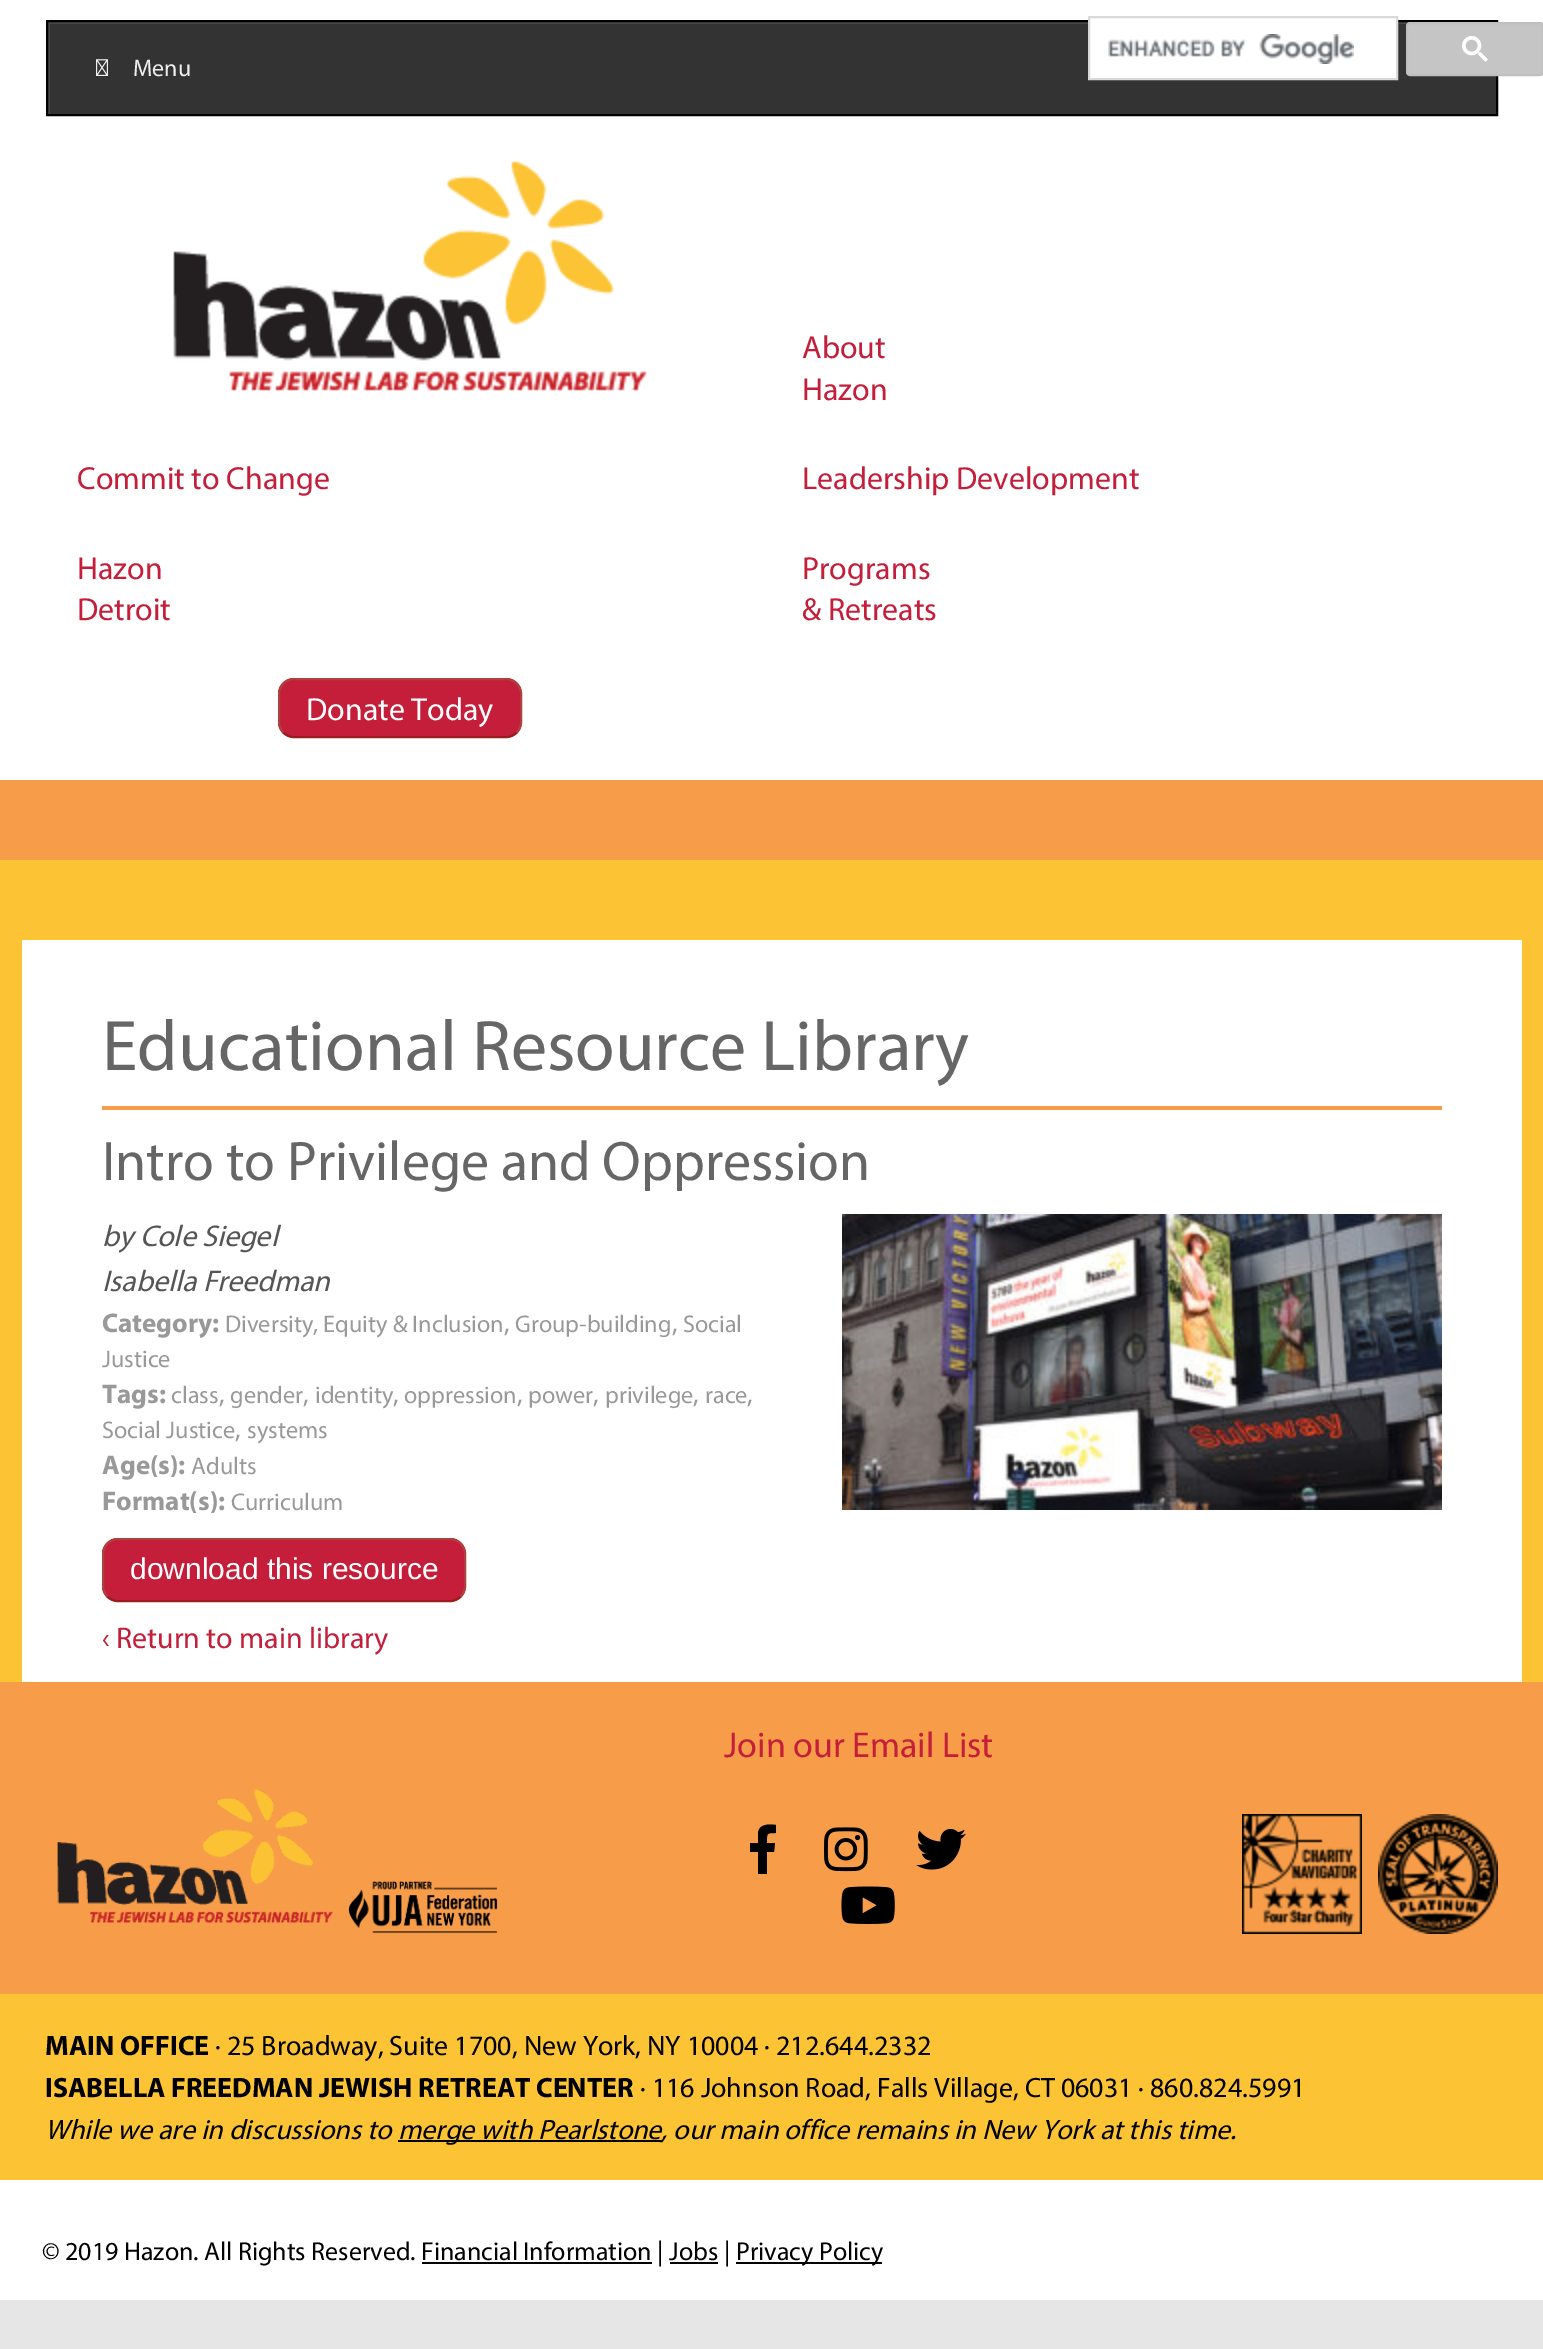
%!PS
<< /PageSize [1543 2349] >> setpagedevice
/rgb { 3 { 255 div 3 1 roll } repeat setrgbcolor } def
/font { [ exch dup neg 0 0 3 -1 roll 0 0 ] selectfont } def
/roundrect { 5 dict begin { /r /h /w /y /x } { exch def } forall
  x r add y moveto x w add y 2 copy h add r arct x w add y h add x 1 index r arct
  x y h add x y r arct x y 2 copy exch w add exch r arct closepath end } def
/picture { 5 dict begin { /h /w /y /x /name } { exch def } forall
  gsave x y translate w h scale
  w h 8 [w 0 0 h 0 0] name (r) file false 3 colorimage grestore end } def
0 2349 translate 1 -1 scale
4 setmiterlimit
230 230 230 rgb
0 0 1543 2349 rectfill
255 255 255 rgb
0 0 1543 780 rectfill
51 51 51 rgb
50 24 1446 90 rectfill
gsave
48 22 1448 92 rectclip
71 71 71 rgb
-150 -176 moveto 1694 -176 lineto 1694 312 lineto -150 312 lineto closepath 50 24 moveto 1498 24 lineto 1498 116 lineto 50 116 lineto closepath eofill
grestore
0 0 0 rgb
2 setlinewidth
47 21 1450 94 rectstroke
255 255 255 rgb
1090 20 306 58 rectfill
217 217 217 rgb
1089 17 308 62 rectstroke
(img/1.rgb) 1108 34 246 30 picture
197 197 197 rgb
1407 23 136 52 3 roundrect gsave fill grestore
191 191 191 rgb
stroke
(img/2.rgb) 1462 36 26 26 picture
252 195 52 rgb
0 860 1543 822 rectfill
(img/3.rgb) 96 59 12 17 picture
(img/4.rgb) 173 161 474 230 picture
196 30 58 rgb
278 678 244 60 16 roundrect fill
154 32 32 rgb
516.5 732.5 moveto 514 735.5 510 737 506 737 curveto 294 737 lineto 290 737 286 735.5 283.5 732.5 curveto stroke
175 64 64 rgb
283.5 732.5 moveto 280.5 730 279 726 279 722 curveto 279 694 lineto 279 690 280.5 686 283.5 683.5 curveto 286 680.5 290 679 294 679 curveto 506 679 lineto 510 679 514 680.5 516.5 683.5 curveto 519.5 686 521 690 521 694 curveto 521 722 lineto 521 726 519.5 730 516.5 732.5 curveto stroke
[
  [0 780 1543 80 247 157 73]
  [22 940 1500 742 255 255 255]
  [102 1106 1340 4 247 157 73]
] { aload pop rgb rectfill } forall
(img/5.rgb) 842 1214 600 296 picture
196 30 58 rgb
102 1538 364 64 16 roundrect fill
154 32 32 rgb
460.5 1596.5 moveto 458 1599.5 454 1601 450 1601 curveto 118 1601 lineto 114 1601 110 1599.5 107.5 1596.5 curveto stroke
175 64 64 rgb
107.5 1596.5 moveto 104.5 1594 103 1590 103 1586 curveto 103 1554 lineto 103 1550 104.5 1546 107.5 1543.5 curveto 110 1540.5 114 1539 118 1539 curveto 450 1539 lineto 454 1539 458 1540.5 460.5 1543.5 curveto 463.5 1546 465 1550 465 1554 curveto 465 1586 lineto 465 1590 463.5 1594 460.5 1596.5 curveto stroke
247 157 73 rgb
0 1682 1543 312 rectfill
0 0 0 rgb
758 1874 moveto 758 1852 lineto 750 1852 lineto 750 1843 lineto 758 1843 lineto 758 1833 lineto 759 1824 768 1824 776 1825 curveto 776 1833 lineto 766 1833 767 1833 767 1843 curveto 775 1843 lineto 774 1852 lineto 767 1852 lineto 767 1874 lineto closepath fill
(img/6.rgb) 824 1827 44 45 picture
(img/7.rgb) 916 1828 50 42 picture
(img/8.rgb) 841 1886 54 38 picture
(img/9.rgb) 57 1789 276 134 picture
(img/10.rgb) 348 1881 150 53 picture
(img/11.rgb) 1242 1814 120 120 picture
(img/12.rgb) 1378 1814 120 120 picture
[
  [0 1994 1543 186 252 195 52]
  [398 2140 264 2 0 0 0]
  [0 2180 1543 120 255 255 255]
  [736 2262 146 2 0 0 0]
  [422 2262 230 2 0 0 0]
  [670 2262 48 2 0 0 0]
] { aload pop rgb rectfill } forall
/Myriad-Regular 24 font
238 238 238 rgb
133 76 moveto (Menu) show
/Myriad-Regular 32 font
196 30 58 rgb
[
  [(About) 802 358]
  [(Hazon) 802 400]
  [(Commit to Change) 77 489]
  [(Leadership Development) 802 489]
  [(Hazon) 77 579]
  [(Detroit) 77 620]
  [(Programs) 802 579]
  [(& Retreats) 802 620]
] { aload pop moveto show } forall
255 255 255 rgb
306 720 moveto (Donate Today) show
/Myriad-Regular 72 font
102 102 102 rgb
102 1070 moveto (Educational Resource Library) show
/Myriad-Regular 56 font
102 1180 moveto (Intro to Privilege and Oppression) show
/Myriad-Italic 30 font
85 85 85 rgb
102 1246 moveto (by Cole Siegel) show
102 1291 moveto (Isabella Freedman) show
/Myriad-Bold 27 font
153 153 153 rgb
102 1332 moveto (Category:) show
/Myriad-Regular 24.25 font
225 1332 moveto (Diversity, Equity & Inclusion) show
/Myriad-Regular 27 font
504 1332 moveto (,) show
/Myriad-Regular 24.25 font
515 1332 moveto (Group-building) show
/Myriad-Regular 27 font
672 1332 moveto (,) show
/Myriad-Regular 24.25 font
683 1332 moveto (Social) show
102 1367 moveto (Justice) show
/Myriad-Bold 27 font
102 1403 moveto (Tags:) show
/Myriad-Regular 24.25 font
171 1403 moveto (class) show
/Myriad-Regular 27 font
219 1403 moveto (,) show
/Myriad-Regular 24.25 font
230 1403 moveto (gender) show
/Myriad-Regular 27 font
303 1403 moveto (,) show
/Myriad-Regular 24.25 font
315 1403 moveto (identity) show
/Myriad-Regular 27 font
393 1403 moveto (,) show
/Myriad-Regular 24.25 font
404 1403 moveto (oppression) show
/Myriad-Regular 27 font
517 1403 moveto (,) show
/Myriad-Regular 24.25 font
528 1403 moveto (power) show
/Myriad-Regular 27 font
593 1403 moveto (,) show
/Myriad-Regular 24.25 font
605 1403 moveto (privilege) show
/Myriad-Regular 27 font
693 1403 moveto (,) show
/Myriad-Regular 24.25 font
705 1403 moveto (race) show
/Myriad-Regular 27 font
747 1403 moveto (,) show
/Myriad-Regular 24.25 font
102 1438 moveto (Social Justice) show
/Myriad-Regular 27 font
235 1438 moveto (,) show
/Myriad-Regular 24.25 font
247 1438 moveto (systems) show
/Myriad-Bold 27 font
102 1474 moveto (Age\(s\):) show
/Myriad-Regular 24.25 font
191 1474 moveto (Adults) show
/Myriad-Bold 27 font
102 1510 moveto (Format\(s\):) show
/Myriad-Regular 24.25 font
231 1510 moveto (Curriculum) show
/LiberationSans-Regular 30 font
255 255 255 rgb
130 1579 moveto (download this resource) show
/Myriad-Regular 30 font
196 30 58 rgb
102 1648 moveto (‹ Return to main library) show
/Myriad-Regular 36 font
724 1757 moveto (Join our Email List) show
/Myriad-Bold 28 font
0 0 0 rgb
45 2055 moveto (MAIN OFFICE) show
/Myriad-Regular 28 font
215 2055 moveto (· 25 Broadway, Suite 1700, New York, NY 10004 · 212.644.2332) show
/Myriad-Bold 28 font
45 2097 moveto (ISABELLA FREEDMAN JEWISH RETREAT CENTER) show
/Myriad-Regular 28 font
640 2097 moveto (· 116 Johnson Road, Falls Village, CT 06031 · 860.824.5991) show
/Myriad-Italic 28 font
45 2139 moveto (While we are in discussions to) show
398 2139 moveto (merge with Pearlstone, our main office remains in New York at this time.) show
/Myriad-Regular 26 font
42 2260 moveto (© 2019 Hazon. All Rights Reserved. Financial Information | Jobs |) show
736 2260 moveto (Privacy Policy) show
showpage
